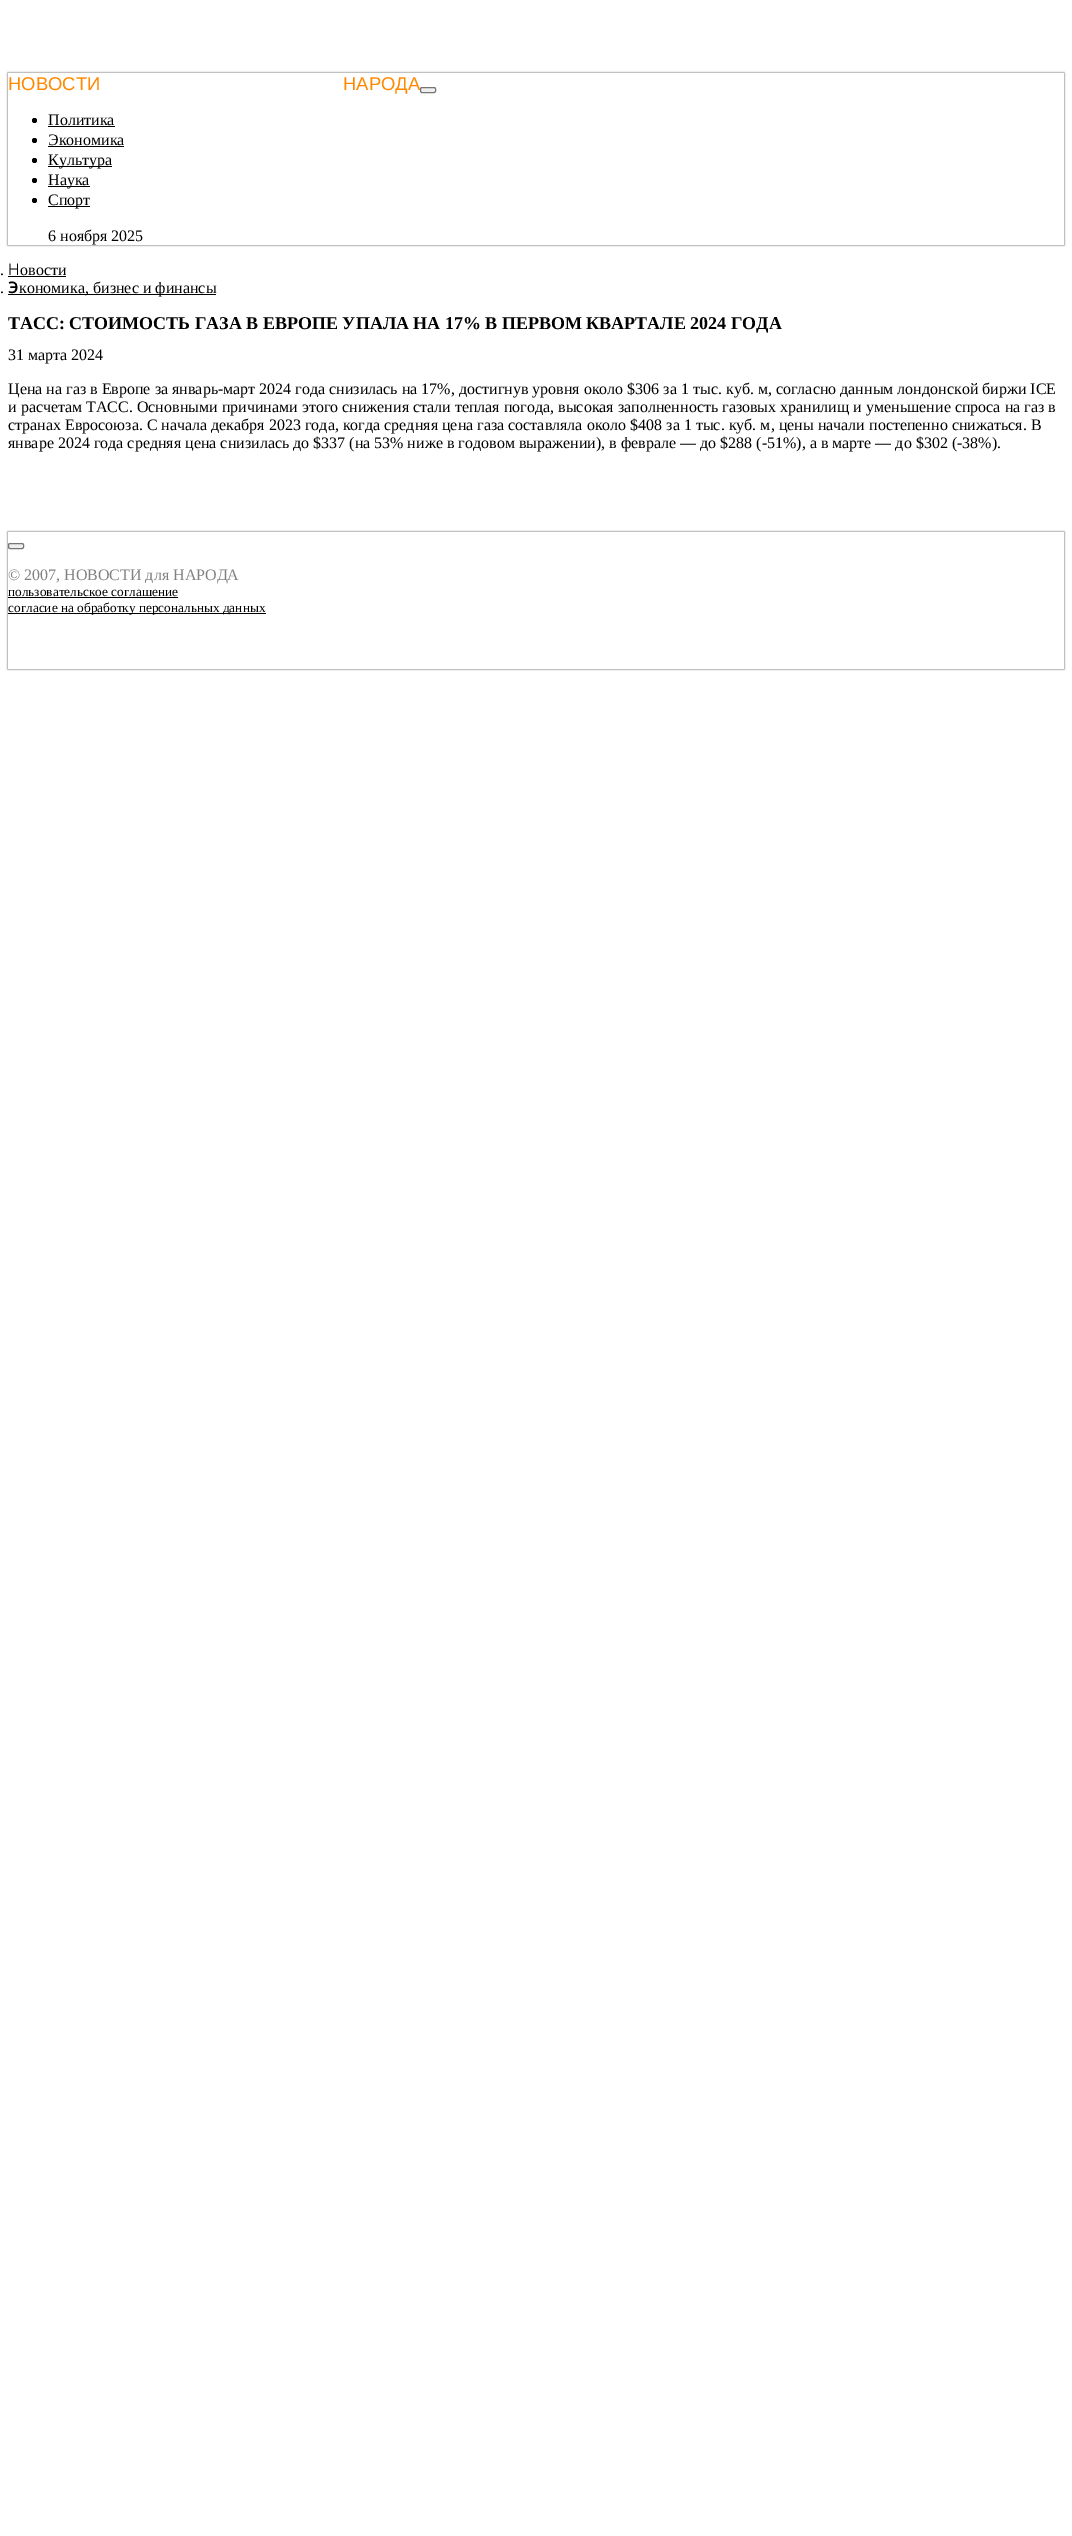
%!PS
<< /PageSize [1072 2536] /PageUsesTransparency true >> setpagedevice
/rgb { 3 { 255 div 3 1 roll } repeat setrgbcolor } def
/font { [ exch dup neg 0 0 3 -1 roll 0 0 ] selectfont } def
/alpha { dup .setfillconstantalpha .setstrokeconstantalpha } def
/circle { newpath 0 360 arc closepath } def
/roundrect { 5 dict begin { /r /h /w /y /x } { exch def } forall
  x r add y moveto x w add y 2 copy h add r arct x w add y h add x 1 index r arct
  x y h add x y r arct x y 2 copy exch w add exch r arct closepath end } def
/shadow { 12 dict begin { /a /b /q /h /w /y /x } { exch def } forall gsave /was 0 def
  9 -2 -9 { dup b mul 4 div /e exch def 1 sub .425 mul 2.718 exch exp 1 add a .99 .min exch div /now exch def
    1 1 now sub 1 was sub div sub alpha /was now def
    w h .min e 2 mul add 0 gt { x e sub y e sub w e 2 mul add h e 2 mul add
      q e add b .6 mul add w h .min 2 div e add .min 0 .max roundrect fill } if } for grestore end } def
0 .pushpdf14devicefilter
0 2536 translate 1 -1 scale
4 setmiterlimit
255 255 255 rgb
0 0 1072 2536 rectfill
gsave
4 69 moveto 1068 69 lineto 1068 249 lineto 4 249 lineto closepath 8 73 moveto 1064 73 lineto 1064 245 lineto 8 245 lineto closepath eoclip newpath
51 51 51 rgb
8 73 1056 172 0 1 1 shadow
grestore
239 239 239 rgb
420.5 87.5 15 5 1.5 roundrect gsave fill grestore
118 118 118 rgb
stroke
0 0 0 rgb
34.5 120.5 2.5 circle fill
48 126 67 1 rectfill
34.5 140.5 2.5 circle fill
48 146 76 1 rectfill
34.5 160.5 2.5 circle fill
48 166 64 1 rectfill
34.5 180.5 2.5 circle fill
48 186 42 1 rectfill
34.5 200.5 2.5 circle fill
[
  [48 206 42 1 0 0 0]
  [8 276 58 1 0 0 0]
  [8 294 208 1 0 0 0]
] { aload pop rgb rectfill } forall
gsave
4 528 moveto 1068 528 lineto 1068 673 lineto 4 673 lineto closepath 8 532 moveto 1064 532 lineto 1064 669 lineto 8 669 lineto closepath eoclip newpath
51 51 51 rgb
8 532 1056 137 0 1 1 shadow
grestore
239 239 239 rgb
8.5 543.5 15 5 1.5 roundrect gsave fill grestore
118 118 118 rgb
stroke
0 0 0 rgb
8 597 170 1 rectfill
8 613 258 1 rectfill
/LiberationSans-Regular 18.5 font
255 136 0 rgb
8 90 moveto (НОВОСТИ) show
343 90 moveto (НАРОДА) show
/LiberationSerif-Regular 16 font
0 0 0 rgb
[
  [(Политика) 48 125]
  [(Экономика) 48 145]
  [(Культура) 48 165]
  [(Наука) 48 185]
  [(Спорт) 48 205]
  [(6 ноября 2025) 48 241]
  [(.) 0 275]
] { aload pop moveto show } forall
/NotoSans-Light 16 font
8 275 moveto (Н) show
/LiberationSerif-Regular 16 font
20 275 moveto (овости) show
0 293 moveto (.) show
/NotoSans-SemiBold 16 font
8 293 moveto (Э) show
/LiberationSerif-Regular 16 font
19 293 moveto (кономика, бизнес и финансы) show
/LiberationSerif-Bold 18 font
8 329 moveto (ТАСС: СТОИМОСТЬ ГАЗА В ЕВРОПЕ УПАЛА НА 17% В ПЕРВОМ КВАРТАЛЕ 2024 ГОДА) show
/LiberationSerif-Regular 16 font
[
  [(31 марта 2024) 8 360]
  [(Цена на газ в Европе за январь-март 2024 года снизилась на 17%, достигнув уровня около $306 за 1 тыс. куб. м, согласно данным лондонской биржи ICE) 8 394]
  [(и расчетам ТАСС. Основными причинами этого снижения стали теплая погода, высокая заполненность газовых хранилищ и уменьшение спроса на газ в) 8 412]
  [(странах Евросоюза. С начала декабря 2023 года, когда средняя цена газа составляла около $408 за 1 тыс. куб. м, цены начали постепенно снижаться. В) 8 430]
  [(январе 2024 года средняя цена снизилась до $337 \(на 53% ниже в годовом выражении\), в феврале — до $288 \(-51%\), а в марте — до $302 \(-38%\).) 8 448]
] { aload pop moveto show } forall
128 128 128 rgb
8 580 moveto (© 2007, НОВОСТИ для НАРОДА) show
/LiberationSerif-Regular 13.3 font
0 0 0 rgb
8 596 moveto (пользовательское соглашение) show
8 612 moveto (согласие на обработку персональных данных) show
.poppdf14devicefilter showpage
